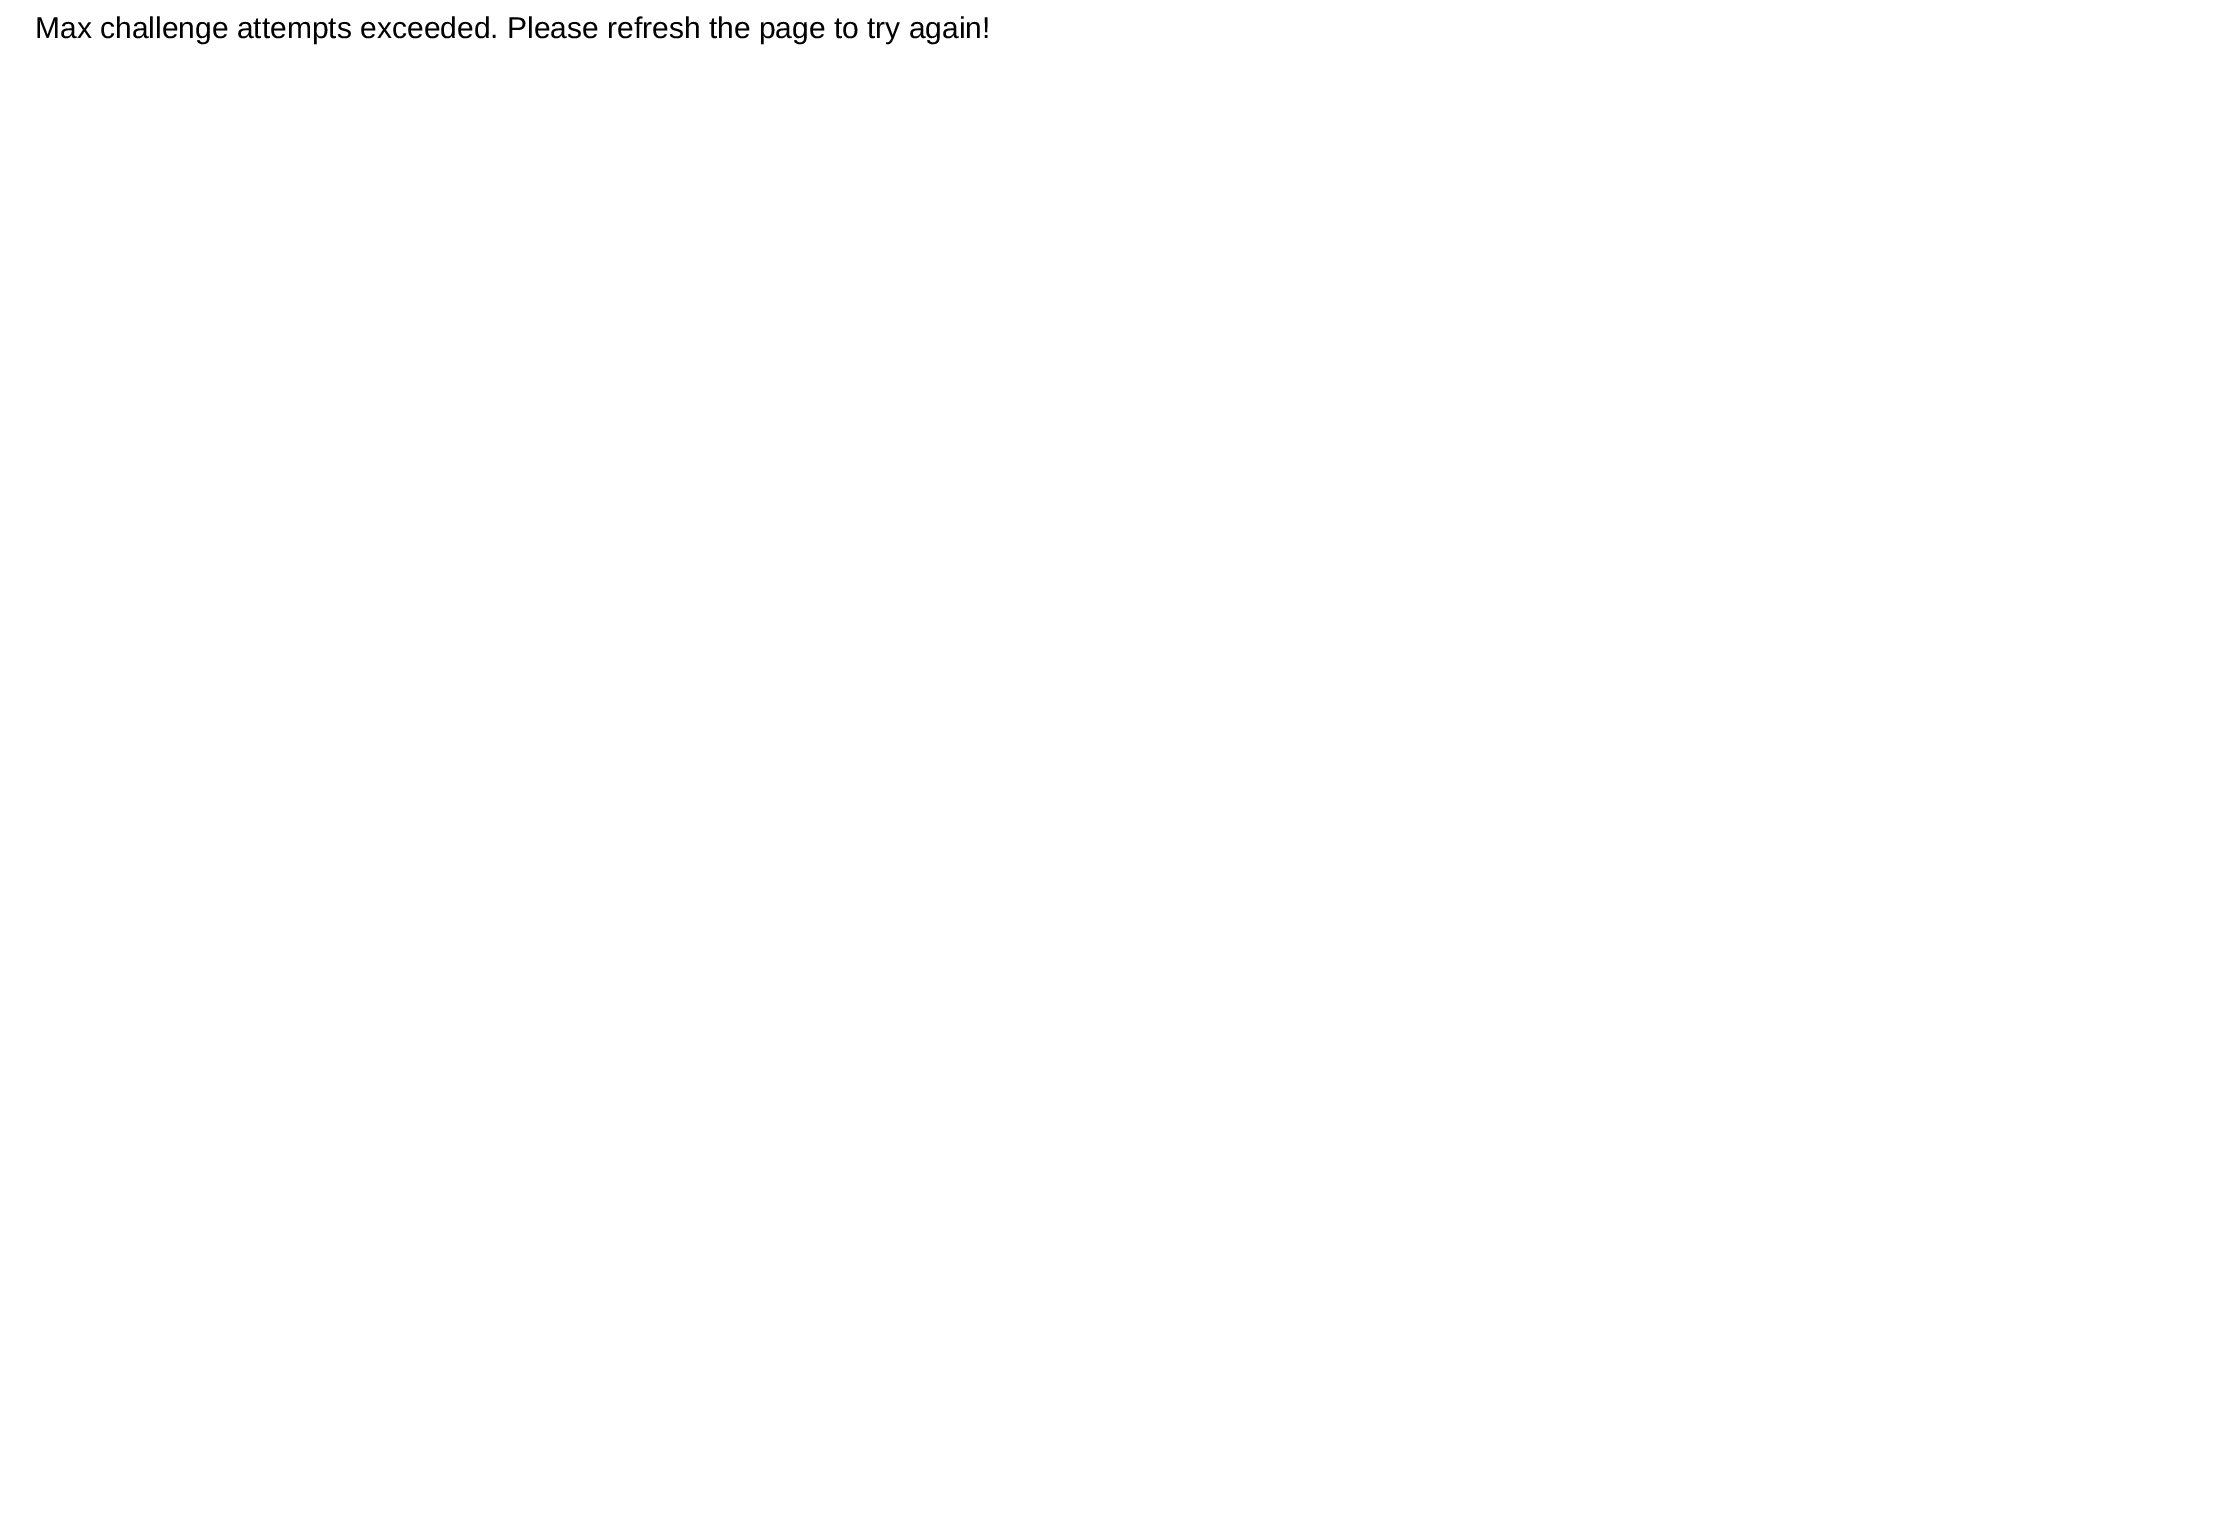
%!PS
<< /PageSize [2225 1519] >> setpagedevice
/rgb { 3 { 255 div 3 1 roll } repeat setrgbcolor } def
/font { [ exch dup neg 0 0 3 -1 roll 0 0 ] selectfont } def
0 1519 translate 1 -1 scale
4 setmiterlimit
255 255 255 rgb
0 0 2225 1519 rectfill
/LiberationSans-Regular 30 font
0 0 0 rgb
35 38 moveto (Max challenge attempts exceeded. Please refresh the page to try again!) show
showpage
